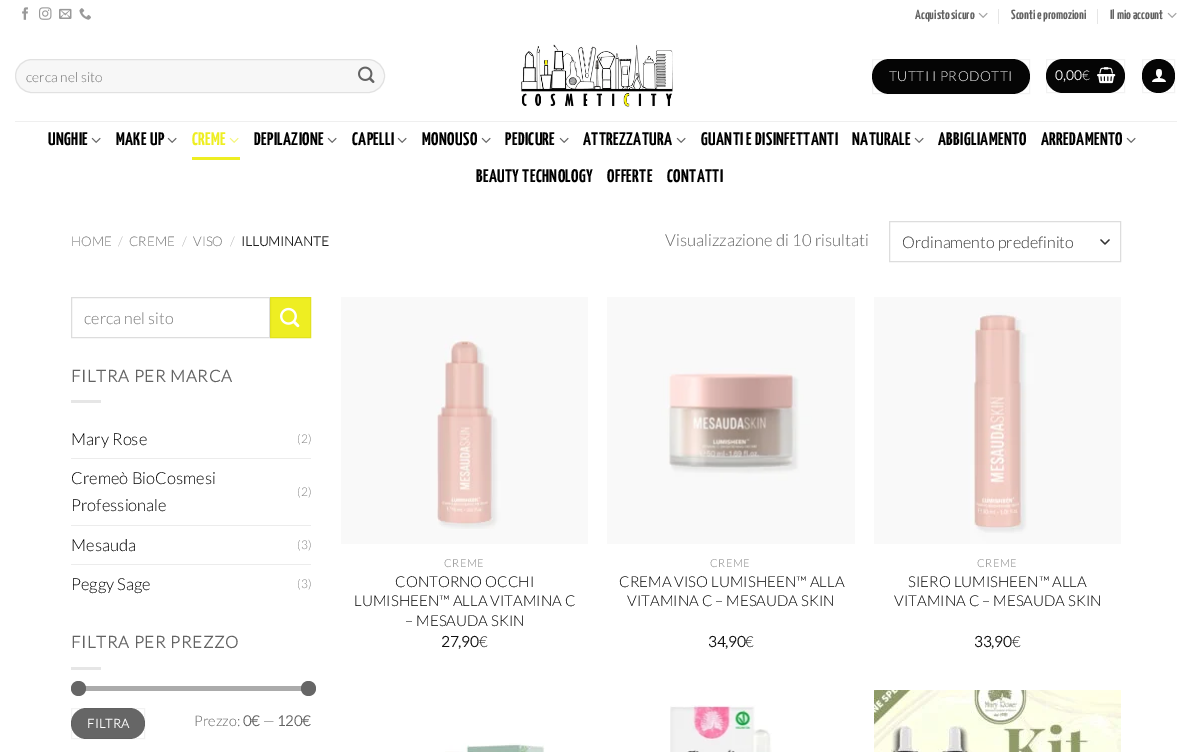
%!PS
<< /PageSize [1192 752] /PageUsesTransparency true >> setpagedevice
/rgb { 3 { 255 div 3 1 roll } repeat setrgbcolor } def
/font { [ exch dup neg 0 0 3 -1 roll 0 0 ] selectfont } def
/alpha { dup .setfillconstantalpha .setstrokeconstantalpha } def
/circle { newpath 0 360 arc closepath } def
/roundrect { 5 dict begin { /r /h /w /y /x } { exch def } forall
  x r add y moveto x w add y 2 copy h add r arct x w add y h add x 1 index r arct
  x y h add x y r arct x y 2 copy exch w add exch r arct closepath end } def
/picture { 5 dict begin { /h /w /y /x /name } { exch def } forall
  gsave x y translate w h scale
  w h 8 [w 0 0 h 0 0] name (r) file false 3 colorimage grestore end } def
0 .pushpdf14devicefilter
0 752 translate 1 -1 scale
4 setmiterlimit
255 255 255 rgb
0 0 1192 752 rectfill
(img/1.rgb) 22 7 6 13 picture
(img/2.rgb) 39 7 13 13 picture
(img/3.rgb) 59 8 13 11 picture
(img/4.rgb) 79 8 12 12 picture
(img/5.rgb) 978 12 10 6 picture
230 230 230 rgb
998 9 1 15 rectfill
1097 9 1 15 rectfill
(img/5.rgb) 1167 12 10 6 picture
247 247 247 rgb
15 59 370 34 17 roundrect fill
0.09 alpha
0 0 0 rgb
15.5 59.5 369 33 16.5 roundrect stroke
1 alpha
(img/6.rgb) 358 66 17 17 picture
(img/7.rgb) 521 44 152 63 picture
5 5 5 rgb
872 59 158 35 17.5 roundrect fill
0.05 alpha
0 0 0 rgb
872.5 59.5 157 34 rectstroke
1 alpha
5 5 5 rgb
1046 59 79 34 17 roundrect fill
0.05 alpha
0 0 0 rgb
1046.5 59.5 78 33 rectstroke
1 alpha
(img/8.rgb) 1097 67 19 17 picture
5 5 5 rgb
1142 59 33 34 16.5 roundrect fill
0.05 alpha
0 0 0 rgb
1142.5 59.5 32 33 rectstroke
1 alpha
(img/9.rgb) 1152 69 14 13 picture
239 239 239 rgb
15 121 1162 1 rectfill
(img/10.rgb) 91 137 10 6 picture
(img/10.rgb) 167 137 10 6 picture
(img/11.rgb) 229 137 10 6 picture
238 238 34 rgb
192 157 48 3 rectfill
(img/10.rgb) 327 137 10 6 picture
(img/10.rgb) 397 137 10 6 picture
(img/10.rgb) 481 137 10 6 picture
(img/10.rgb) 559 137 10 6 picture
(img/10.rgb) 676 137 10 6 picture
(img/10.rgb) 914 137 10 6 picture
(img/10.rgb) 1126 137 10 6 picture
51 51 51 rgb
1.3 setlinewidth
1 setlinecap
1 setlinejoin
1101 240 moveto 1105 244 lineto 1109 240 lineto stroke
221 221 221 rgb
1 setlinewidth
0 setlinecap
0 setlinejoin
889.5 221.5 231 40 rectstroke
71.5 297.5 198 40 rectstroke
238 238 34 rgb
270.5 297.5 moveto 310.5 297.5 lineto 310.5 337.5 lineto 270.5 337.5 lineto closepath gsave fill grestore
226 226 32 rgb
stroke
(img/12.rgb) 280 307 20 21 picture
[
  [71 400 30 3 230 230 230]
  [71 458 240 1 236 236 236]
  [71 525 240 1 236 236 236]
  [71 564 240 1 236 236 236]
  [71 667 30 3 230 230 230]
] { aload pop rgb rectfill } forall
241 241 241 rgb
71 686 240 5 2.5 roundrect fill
0.5 alpha
102 102 102 rgb
71 686 240 5 2.5 roundrect fill
1 alpha
78.5 688.5 7.5 circle fill
308.5 688.5 7.5 circle fill
71 708 74 31 15.5 roundrect fill
0.05 alpha
0 0 0 rgb
71.5 708.5 73 30 rectstroke
1 alpha
(img/13.rgb) 341 297 247 247 picture
(img/14.rgb) 607 297 248 247 picture
(img/15.rgb) 874 297 247 247 picture
(img/16.rgb) 445 743 100 9 picture
(img/17.rgb) 670 705 102 47 picture
(img/18.rgb) 874 690 247 62 picture
/YanoneKaffeesatz-ExtraLight 13.25 font
99 99 99 rgb
[
  [(Acquisto sicuro) 915 19]
  [(Sconti e promozioni) 1011 19]
  [(Il mio account) 1110 19]
] { aload pop moveto show } forall
/Lato-Light 13.75 font
117 117 117 rgb
26 82 moveto (cerca nel sito) show
255 255 255 rgb
889 81 moveto 0.4 0 (TUTTI I PRODOTTI) ashow
/Lato-Bold 13.25 font
1055 80 moveto 0.5 0 (0,00) ashow
/Lato-Light 13.25 font
1082 80 moveto 0.5 0 (€) ashow
/YanoneKaffeesatz-ExtraLight 18.25 font
0 0 0 rgb
48 145 moveto 0.4 0 (UNGHIE) ashow
116 145 moveto 0.4 0 (MAKE UP) ashow
238 238 34 rgb
192 145 moveto 0.4 0 (CREME) ashow
0 0 0 rgb
254 145 moveto 0.4 0 (DEPILAZIONE) ashow
352 145 moveto 0.4 0 (CAPELLI) ashow
422 145 moveto 0.4 0 (MONOUSO) ashow
505 145 moveto 0.4 0 (PEDICURE) ashow
583 145 moveto 0.4 0 (ATTREZZATURA) ashow
701 145 moveto 0.4 0 (GUANTI E DISINFETTANTI) ashow
852 145 moveto 0.4 0 (NATURALE) ashow
938 145 moveto 0.4 0 (ABBIGLIAMENTO) ashow
1041 145 moveto 0.4 0 (ARREDAMENTO) ashow
476 182 moveto 0.4 0 (BEAUTY TECHNOLOGY) ashow
607 182 moveto 0.4 0 (OFFERTE) ashow
667 182 moveto 0.4 0 (CONTATTI) ashow
/Lato-Light 13.25 font
110 110 110 rgb
71 246 moveto (HOME) show
178 178 178 rgb
118 246 moveto (/) show
110 110 110 rgb
129 246 moveto (CREME) show
178 178 178 rgb
182 246 moveto (/) show
110 110 110 rgb
193 246 moveto (VISO) show
178 178 178 rgb
230 246 moveto (/) show
/Lato-Bold 13.25 font
34 34 34 rgb
241 246 moveto (ILLUMINANTE) show
/Lato-Light 16.6 font
99 99 99 rgb
665 246 moveto (Visualizzazione di 10 risultati) show
/Lato-Light 16.1 font
51 51 51 rgb
902 248 moveto (Ordinamento predefinito) show
117 117 117 rgb
84 324 moveto (cerca nel sito) show
/Lato-Bold 16.6 font
99 99 99 rgb
71 382 moveto 0.8 0 (FILTRA PER MARCA) ashow
/Lato-Light 16.6 font
0 0 0 rgb
71 445 moveto (Mary Rose) show
/Lato-Light 12 font
130 130 130 rgb
297 443 moveto (\(2\)) show
/Lato-Light 16.6 font
0 0 0 rgb
71 484 moveto (Cremeò BioCosmesi) show
71 511 moveto (Professionale) show
/Lato-Light 12 font
130 130 130 rgb
297 496 moveto (\(2\)) show
/Lato-Light 16.6 font
0 0 0 rgb
71 551 moveto (Mesauda) show
/Lato-Light 12 font
130 130 130 rgb
297 549 moveto (\(3\)) show
/Lato-Light 16.6 font
0 0 0 rgb
71 590 moveto (Peggy Sage) show
/Lato-Light 12 font
130 130 130 rgb
297 588 moveto (\(3\)) show
/Lato-Bold 16.6 font
99 99 99 rgb
71 648 moveto 0.8 0 (FILTRA PER PREZZO) ashow
/Lato-Bold 12.5 font
255 255 255 rgb
87 728 moveto 0.4 0 (FILTRA) ashow
/Lato-Light 14.5 font
99 99 99 rgb
194 726 moveto (Prezzo:) show
/Lato-Bold 14.5 font
243 726 moveto (0€) show
/Lato-Light 14.5 font
263 726 moveto (—) show
/Lato-Bold 14.5 font
277 726 moveto (120€) show
/Lato-Light 11 font
130 130 130 rgb
444 567 moveto 0.5 0 (CREME) ashow
/Lato-Light 15 font
0 0 0 rgb
[
  [(CONTORNO OCCHI) 395 587]
  [(LUMISHEEN™ ALLA VITAMINA C) 354 606]
  [(– MESAUDA SKIN) 405 626]
] { aload pop moveto show } forall
/Lato-Bold 15 font
17 17 17 rgb
441 647 moveto (27,90) show
/Lato-Light 15 font
479 647 moveto (€) show
/Lato-Light 11 font
130 130 130 rgb
710 567 moveto 0.5 0 (CREME) ashow
/Lato-Light 15 font
0 0 0 rgb
619 587 moveto (CREMA VISO LUMISHEEN™ ALLA) show
627 606 moveto (VITAMINA C – MESAUDA SKIN) show
/Lato-Bold 15 font
17 17 17 rgb
708 647 moveto (34,90) show
/Lato-Light 15 font
745 647 moveto (€) show
/Lato-Light 11 font
130 130 130 rgb
977 567 moveto 0.5 0 (CREME) ashow
/Lato-Light 15 font
0 0 0 rgb
908 587 moveto (SIERO LUMISHEEN™ ALLA) show
894 606 moveto (VITAMINA C – MESAUDA SKIN) show
/Lato-Bold 15 font
17 17 17 rgb
974 647 moveto (33,90) show
/Lato-Light 15 font
1012 647 moveto (€) show
.poppdf14devicefilter showpage
